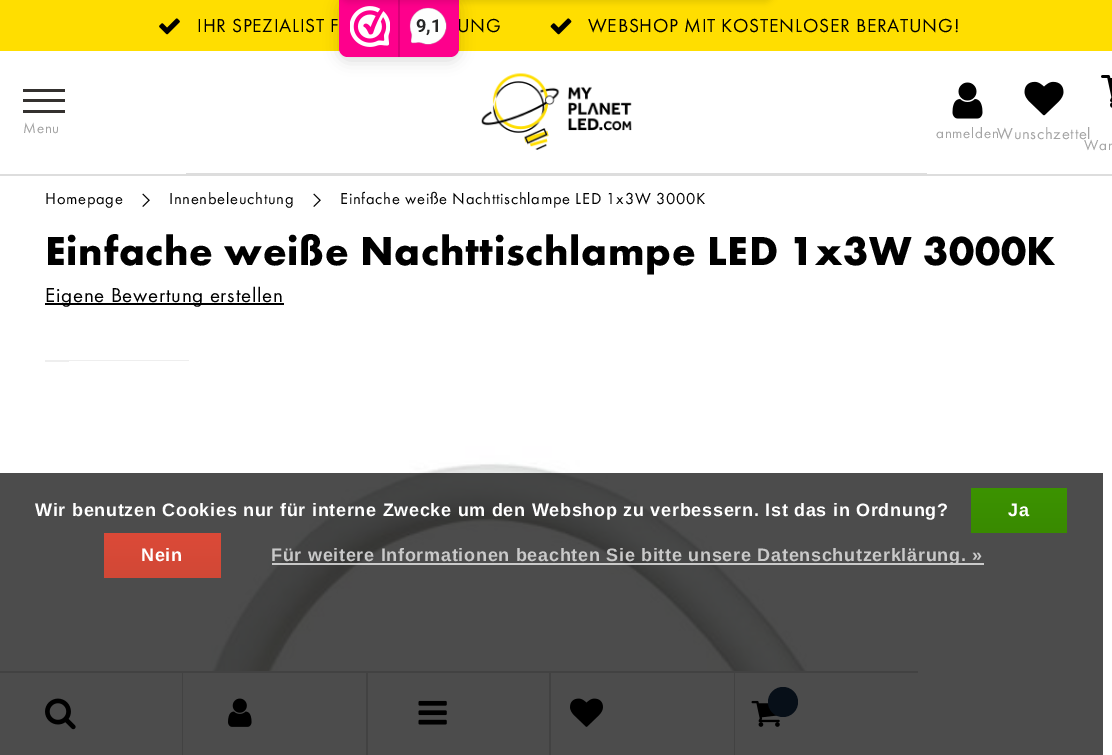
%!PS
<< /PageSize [1112 755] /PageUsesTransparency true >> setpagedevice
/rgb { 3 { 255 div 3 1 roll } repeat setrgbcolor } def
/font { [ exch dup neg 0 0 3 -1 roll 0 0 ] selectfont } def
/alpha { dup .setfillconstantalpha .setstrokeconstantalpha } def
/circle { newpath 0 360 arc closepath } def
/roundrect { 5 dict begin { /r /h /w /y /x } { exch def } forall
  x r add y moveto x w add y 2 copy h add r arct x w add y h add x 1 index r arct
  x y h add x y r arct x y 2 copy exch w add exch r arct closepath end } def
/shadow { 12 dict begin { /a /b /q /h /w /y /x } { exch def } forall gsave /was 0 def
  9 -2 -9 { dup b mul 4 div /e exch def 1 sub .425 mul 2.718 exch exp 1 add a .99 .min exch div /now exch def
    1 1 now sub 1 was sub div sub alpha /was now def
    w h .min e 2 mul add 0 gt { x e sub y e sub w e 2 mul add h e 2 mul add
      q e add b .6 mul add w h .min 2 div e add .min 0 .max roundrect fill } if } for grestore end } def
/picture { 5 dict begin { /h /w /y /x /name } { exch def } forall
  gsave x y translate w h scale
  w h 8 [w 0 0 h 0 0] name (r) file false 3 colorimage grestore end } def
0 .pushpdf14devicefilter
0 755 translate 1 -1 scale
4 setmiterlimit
255 255 255 rgb
0 0 1112 755 rectfill
221 221 221 rgb
0 174 1112 2 rectfill
255 222 0 rgb
0 0 1112 51 rectfill
(img/1.rgb) 159 18 21 17 picture
(img/2.rgb) 550 18 22 17 picture
[
  [23 89 42 3 52 49 47]
  [23 99 42 3 52 49 47]
  [23 110 42 3 52 49 47]
  [186 173 741 1 221 221 221]
] { aload pop rgb rectfill } forall
(img/3.rgb) 481 73 151 77 picture
(img/4.rgb) 952 82 31 37 picture
(img/5.rgb) 1024 81 40 35 picture
(img/6.rgb) 1101 75 11 33 picture
(img/7.rgb) 142 193 8 14 picture
(img/7.rgb) 313 193 8 14 picture
0 0 0 rgb
45 303 239 2 rectfill
gsave
45 360 144 2 rectclip
238 238 238 rgb
8 setlinewidth
49 364 136 136 rectstroke
grestore
(img/8.rgb) 69 361 787 310 picture
339 0 120 60 9 7.5 0.15 shadow
221 221 221 rgb
0 671 918 2 rectfill
182 671 1 84 rectfill
(img/11.rgb) 45 698 31 32 picture
366 671 2 84 rectfill
(img/12.rgb) 228 698 24 29 picture
549 671 2 84 rectfill
(img/13.rgb) 418 700 29 25 picture
734 671 1 84 rectfill
(img/14.rgb) 570 698 33 29 picture
(img/15.rgb) 751 700 29 27 picture
25 49 81 rgb
783 702 15 circle fill
0.7 alpha
0 0 0 rgb
0 473 1103 282 rectfill
1 alpha
gsave 971 488 moveto 1067 488 lineto 1067 533 lineto 971 533 lineto closepath clip newpath
<< /ShadingType 2 /ColorSpace /DeviceRGB /Coords [1019 488 1019 533] /Extend [true true] /Function << /FunctionType 2 /Domain [0 1] /C0 [0.235 0.576 0] /C1 [0.224 0.541 0] /N 1 >> >> shfill grestore
gsave 104 533 moveto 221 533 lineto 221 578 lineto 104 578 lineto closepath clip newpath
<< /ShadingType 2 /ColorSpace /DeviceRGB /Coords [162 533 162 578] /Extend [true true] /Function << /FunctionType 2 /Domain [0 1] /C0 [0.863 0.29 0.22] /C1 [0.82 0.282 0.212] /N 1 >> >> shfill grestore
0.7 alpha
255 255 255 rgb
272 563 712 2 rectfill
/FuturaPT-Regular 19.5 font
1 alpha
0 0 0 rgb
197 32 moveto 0.72 0 (IHR SPEZIALIST F) ashow
457 32 moveto 0.72 0 (UNG) ashow
588 32 moveto 0.72 0 (WEBSHOP MIT KOSTENLOSER BERATUNG!) ashow
/FuturaPT-Regular 15 font
163 163 163 rgb
23 133 moveto 0.72 0 (Menu) ashow
936 138 moveto 0.72 0 (anmelden) ashow
/FuturaPT-Regular 16.5 font
997 139 moveto 0.72 0 (Wunschzettel) ashow
/FuturaPT-Regular 15 font
1084 150 moveto 0.72 0 (War) ashow
/FuturaPT-Regular 16.5 font
0 0 0 rgb
45 204 moveto 0.72 0 (Homepage) ashow
169 204 moveto 0.72 0 (Innenbeleuchtung) ashow
340 204 moveto 0.72 0 (Einfache weiße Nachttischlampe LED 1x3W 3000K) ashow
/FuturaPT-Bold 42 font
45 265 moveto 0.72 0 (Einfache weiße Nachttischlampe LED 1x3W 3000K) ashow
/FuturaPT-Regular 21 font
45 302 moveto 0.72 0 (Eigene Bewertung erstellen) ashow
254 0 140 rgb
339 -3 moveto 459 -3 lineto 459 48 lineto 459 53 455 57 450 57 curveto 348 57 lineto 343 57 339 53 339 48 curveto closepath fill
(img/9.rgb) 350 6 40 41 picture
216 0 119 rgb
398 0 2 57 rectfill
(img/10.rgb) 409 7 38 38 picture
0 0 0 rgb
339 -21 435 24 12 3 0.1 shadow
/Roboto-Bold 18 font
39 38 38 rgb
416 32 moveto (9,1) show
/LiberationSans-Bold 18 font
255 255 255 rgb
35 516 moveto 0.72 0 (Wir benutzen Cookies nur für interne Zwecke um den Webshop zu verbessern. Ist das in Ordnung?) ashow
1008 516 moveto 0.72 0 (Ja) ashow
141 561 moveto 0.72 0 (Nein) ashow
201 201 201 rgb
271 561 moveto 0.72 0 (Für weitere Informationen beachten Sie bitte unsere Datenschutzerklärung. ») ashow
.poppdf14devicefilter showpage
